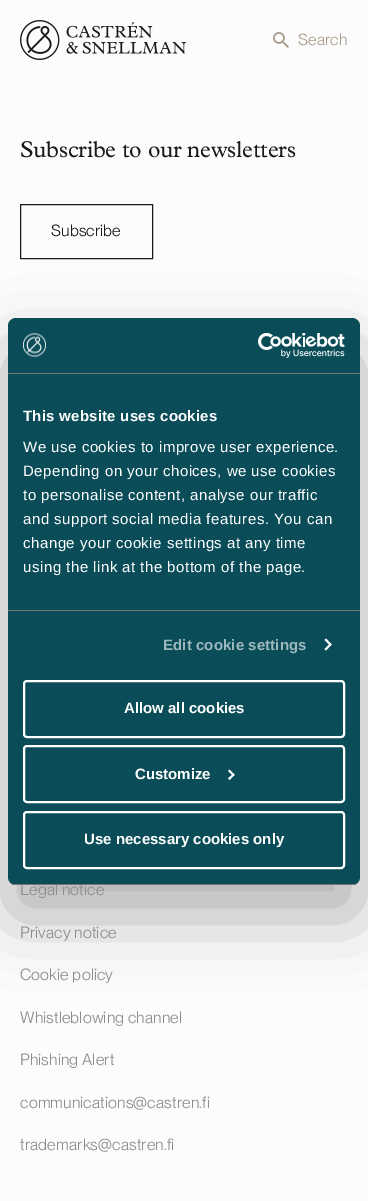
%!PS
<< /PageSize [368 1201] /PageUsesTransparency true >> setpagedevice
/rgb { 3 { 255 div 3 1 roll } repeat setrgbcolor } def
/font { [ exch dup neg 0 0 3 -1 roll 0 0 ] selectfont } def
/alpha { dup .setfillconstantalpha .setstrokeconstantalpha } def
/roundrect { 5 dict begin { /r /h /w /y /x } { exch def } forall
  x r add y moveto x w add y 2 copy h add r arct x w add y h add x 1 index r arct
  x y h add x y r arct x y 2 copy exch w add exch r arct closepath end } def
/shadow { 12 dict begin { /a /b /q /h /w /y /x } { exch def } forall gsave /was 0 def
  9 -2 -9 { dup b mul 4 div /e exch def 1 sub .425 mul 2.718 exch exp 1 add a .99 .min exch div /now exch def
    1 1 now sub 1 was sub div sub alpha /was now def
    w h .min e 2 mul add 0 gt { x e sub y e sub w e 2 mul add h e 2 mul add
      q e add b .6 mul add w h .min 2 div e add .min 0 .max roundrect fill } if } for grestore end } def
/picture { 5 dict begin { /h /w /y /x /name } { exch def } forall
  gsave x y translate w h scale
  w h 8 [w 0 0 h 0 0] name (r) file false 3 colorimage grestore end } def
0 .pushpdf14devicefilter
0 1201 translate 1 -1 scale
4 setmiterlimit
252 252 252 rgb
0 0 368 1201 rectfill
(img/1.rgb) 20 20 166 40 picture
(img/2.rgb) 273 32 16 16 picture
26 26 26 rgb
20.5 204.5 132 54 rectstroke
0 0 0 rgb
8 350 352 567 8 34 0.3 shadow
/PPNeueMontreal-Regular 16 font
168 154 138 rgb
298 45 moveto 0.15 0 (Search) ashow
/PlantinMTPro-Regular 23 font
26 26 26 rgb
20 157 moveto -0.25 0 (Subscribe to our newsletters) ashow
/PPNeueMontreal-Regular 16 font
51 236 moveto 0.15 0 (Subscribe) ashow
140 140 140 rgb
20 895 moveto 0.15 0 (Legal notice) ashow
20 938 moveto 0.15 0 (Privacy notice) ashow
20 980 moveto 0.15 0 (Cookie policy) ashow
20 1023 moveto 0.15 0 (Whistleblowing channel) ashow
20 1065 moveto 0.15 0 (Phishing Alert) ashow
20 1108 moveto 0.15 0 (communications@castren.fi) ashow
20 1150 moveto 0.15 0 (trademarks@castren.fi) ashow
10 77 89 rgb
8 318 352 567 8 roundrect fill
117 117 117 rgb
8 373 352 1 rectfill
(img/3.rgb) 23 333 23 24 picture
(img/4.rgb) 258 333 87 25 picture
8 610 352 1 rectfill
/LiberationSans-Bold 15 font
255 255 255 rgb
23 421 moveto 0.25 0 (This website uses cookies) ashow
/LiberationSans-Regular 15 font
23 452 moveto 0.5 0 (We use cookies to improve user experience.) ashow
23 476 moveto 0.5 0 (Depending on your choices, we use cookies) ashow
23 500 moveto 0.5 0 (to personalise content, analyse our traffic) ashow
23 524 moveto 0.5 0 (and support social media features. You can) ashow
23 548 moveto 0.5 0 (change your cookie settings at any time) ashow
23 572 moveto 0.5 0 (using the link at the bottom of the page.) ashow
/LiberationSans-Bold 15 font
157 184 189 rgb
163 650 moveto 0.1 0 (Edit cookie settings) ashow
255 255 255 rgb
326 638.5 moveto 331.5 644.5 lineto 330.5 646 lineto 324.5 640 lineto closepath fill
330.5 643 moveto 331.5 644.5 lineto 326 650.5 lineto 324.5 649 lineto closepath fill
gsave
8 318 352 567 8 roundrect clip newpath
117 117 117 rgb
8 884 352 1 rectfill
grestore
2 setlinewidth
24 681 320 56 3 roundrect stroke
124 713 moveto (Allow all cookies) show
24 746 320 56 3 roundrect stroke
135 779 moveto (Customize) show
229.5 769.5 moveto 234.5 775 lineto 233.5 776 lineto 228 771 lineto closepath fill
233.5 773.5 moveto 234.5 775 lineto 229.5 780 lineto 228 778.5 lineto closepath fill
24 812 320 56 3 roundrect stroke
84 844 moveto (Use necessary cookies only) show
.poppdf14devicefilter showpage
